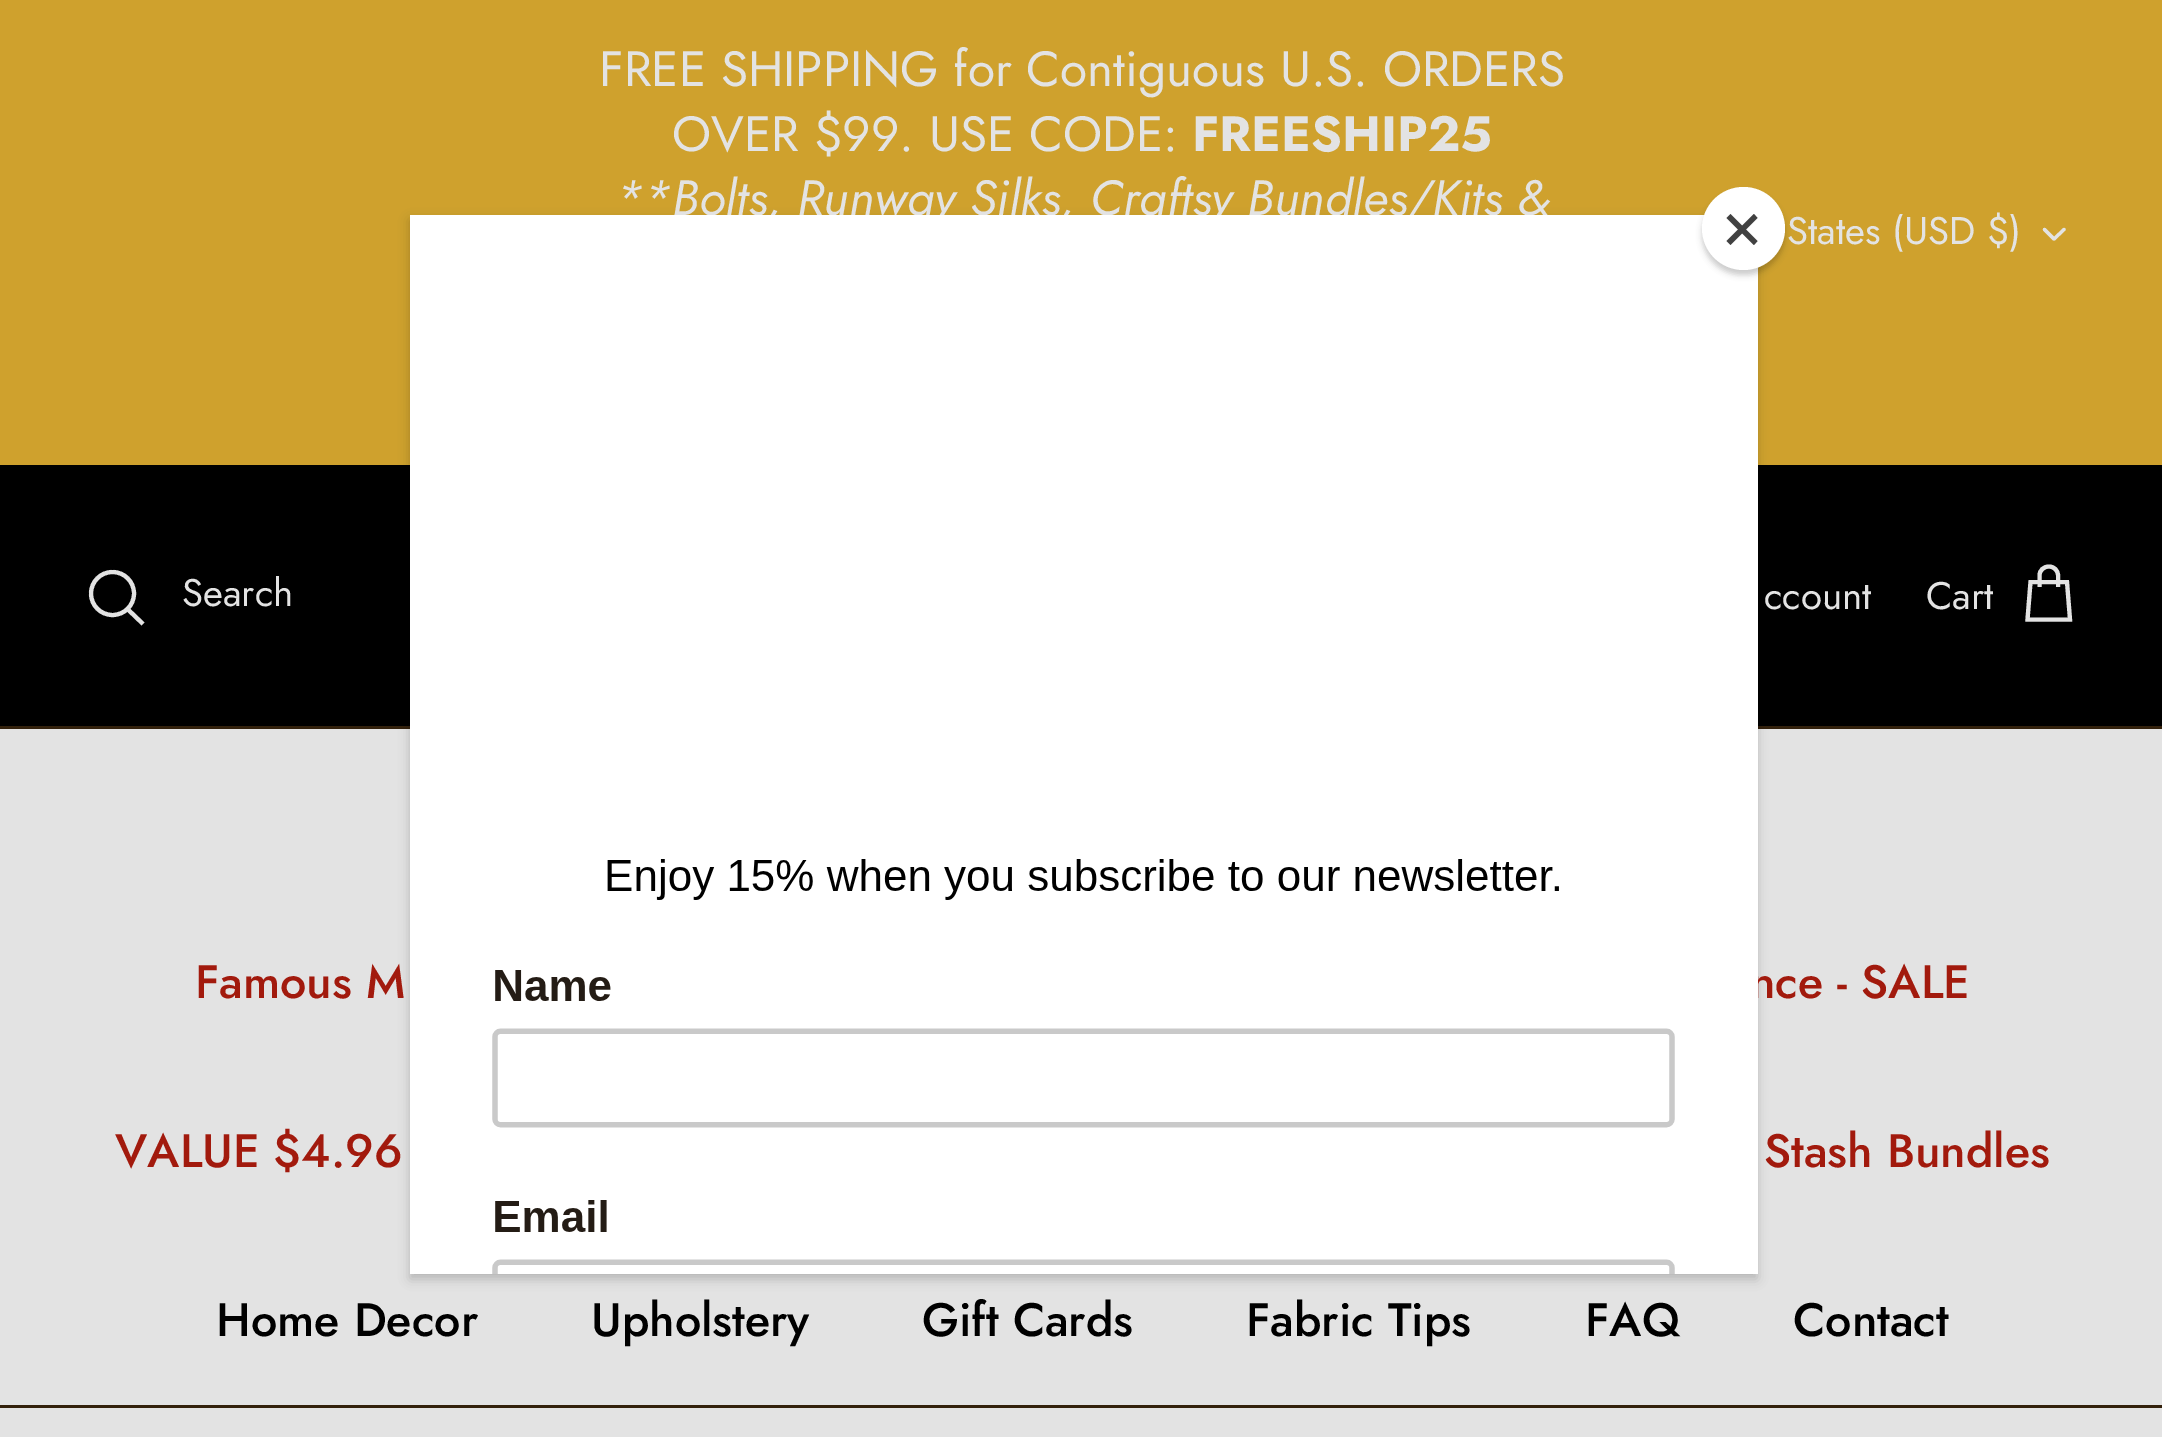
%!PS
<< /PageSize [2162 1437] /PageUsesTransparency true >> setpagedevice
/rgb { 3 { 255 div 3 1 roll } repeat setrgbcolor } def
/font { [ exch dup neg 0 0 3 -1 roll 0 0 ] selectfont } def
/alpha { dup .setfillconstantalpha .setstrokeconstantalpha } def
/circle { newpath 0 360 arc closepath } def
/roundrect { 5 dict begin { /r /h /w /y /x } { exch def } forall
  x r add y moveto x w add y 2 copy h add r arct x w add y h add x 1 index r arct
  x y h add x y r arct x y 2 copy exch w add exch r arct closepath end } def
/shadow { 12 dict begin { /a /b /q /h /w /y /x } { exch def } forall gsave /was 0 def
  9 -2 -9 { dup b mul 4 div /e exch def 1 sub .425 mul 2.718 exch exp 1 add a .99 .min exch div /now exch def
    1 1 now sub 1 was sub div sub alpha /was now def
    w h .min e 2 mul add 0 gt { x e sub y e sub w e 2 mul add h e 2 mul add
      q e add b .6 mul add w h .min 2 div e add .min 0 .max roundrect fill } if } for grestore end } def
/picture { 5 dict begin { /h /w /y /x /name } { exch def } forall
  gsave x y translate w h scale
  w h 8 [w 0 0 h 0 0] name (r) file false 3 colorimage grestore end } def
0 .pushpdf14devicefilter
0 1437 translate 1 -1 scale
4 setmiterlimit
227 227 227 rgb
0 0 2162 1437 rectfill
207 161 45 rgb
0 0 2162 465 rectfill
227 227 227 rgb
3.2 setlinewidth
1 setlinecap
1 setlinejoin
2044.5 229.5 moveto 2054 239 lineto 2064 229.5 lineto stroke
0 0 0 rgb
0 465 2162 261 rectfill
51 33 12 rgb
0 726 2162 3 rectfill
0 0 0 rgb
410 220 1347 1059 0 5.5 0.2 shadow
227 227 227 rgb
4.1 setlinewidth
0 setlinecap
0 setlinejoin
112.5 593.5 21.5 circle stroke
2 setlinecap
129 610.5 moveto 141.5 622.5 lineto stroke
0 setlinecap
2058 587 moveto 2058 575.5 lineto 2058 570.5 2054 566.5 2049 566.5 curveto 2043.5 566.5 2039.5 570.5 2039.5 575.5 curveto 2039.5 587 lineto 2030.5 582 moveto 2067 582 lineto 2070 619.5 lineto 2027.5 619.5 lineto closepath stroke
51 33 12 rgb
0 1405 2162 3 rectfill
/Jost-Regular 49.5 font
227 227 227 rgb
599 86 moveto (FREE SHIPPING for Contiguous U.S. ORDERS) show
672 151 moveto (OVER $99. USE CODE:) show
/Jost-Bold 49.5 font
1192 151 moveto (FREESHIP25) show
/Jost-Italic 49.5 font
615 215 moveto (**Bolts, Runway Silks, Craftsy Bundles/Kits &) show
/Jost-Regular 38.5 font
[
  [(States \(USD $\)) 1787 244]
  [(Search) 182 606]
  [(ccount) 1764 609]
  [(Cart) 1926 609]
] { aload pop moveto show } forall
/Jost-Medium 46.75 font
162 26 13 rgb
195 998 moveto (Famous M) show
1750 998 moveto (nce - SALE) show
(img/1.rgb) 410 215 1348 1059 picture
0 0 0 rgb
1702 193 83 82 41 3 0.2 shadow
255 255 255 rgb
1743.5 228.5 41.5 circle fill
65 65 65 rgb
1754 214 moveto 1757.5 218 lineto 1730.5 245 lineto 1726.5 241 lineto closepath fill
1726.5 218 moveto 1730.5 214 lineto 1757.5 241 lineto 1754 245 lineto closepath fill
162 26 13 rgb
115 1167 moveto (VALUE $4.96) show
1764 1167 moveto (Stash Bundles) show
0 0 0 rgb
[
  [(Home Decor) 216 1336]
  [(Upholstery) 591 1336]
  [(Gift Cards) 922 1336]
  [(Fabric Tips) 1246 1336]
  [(FAQ) 1585 1336]
  [(Contact) 1793 1336]
] { aload pop moveto show } forall
.poppdf14devicefilter showpage
